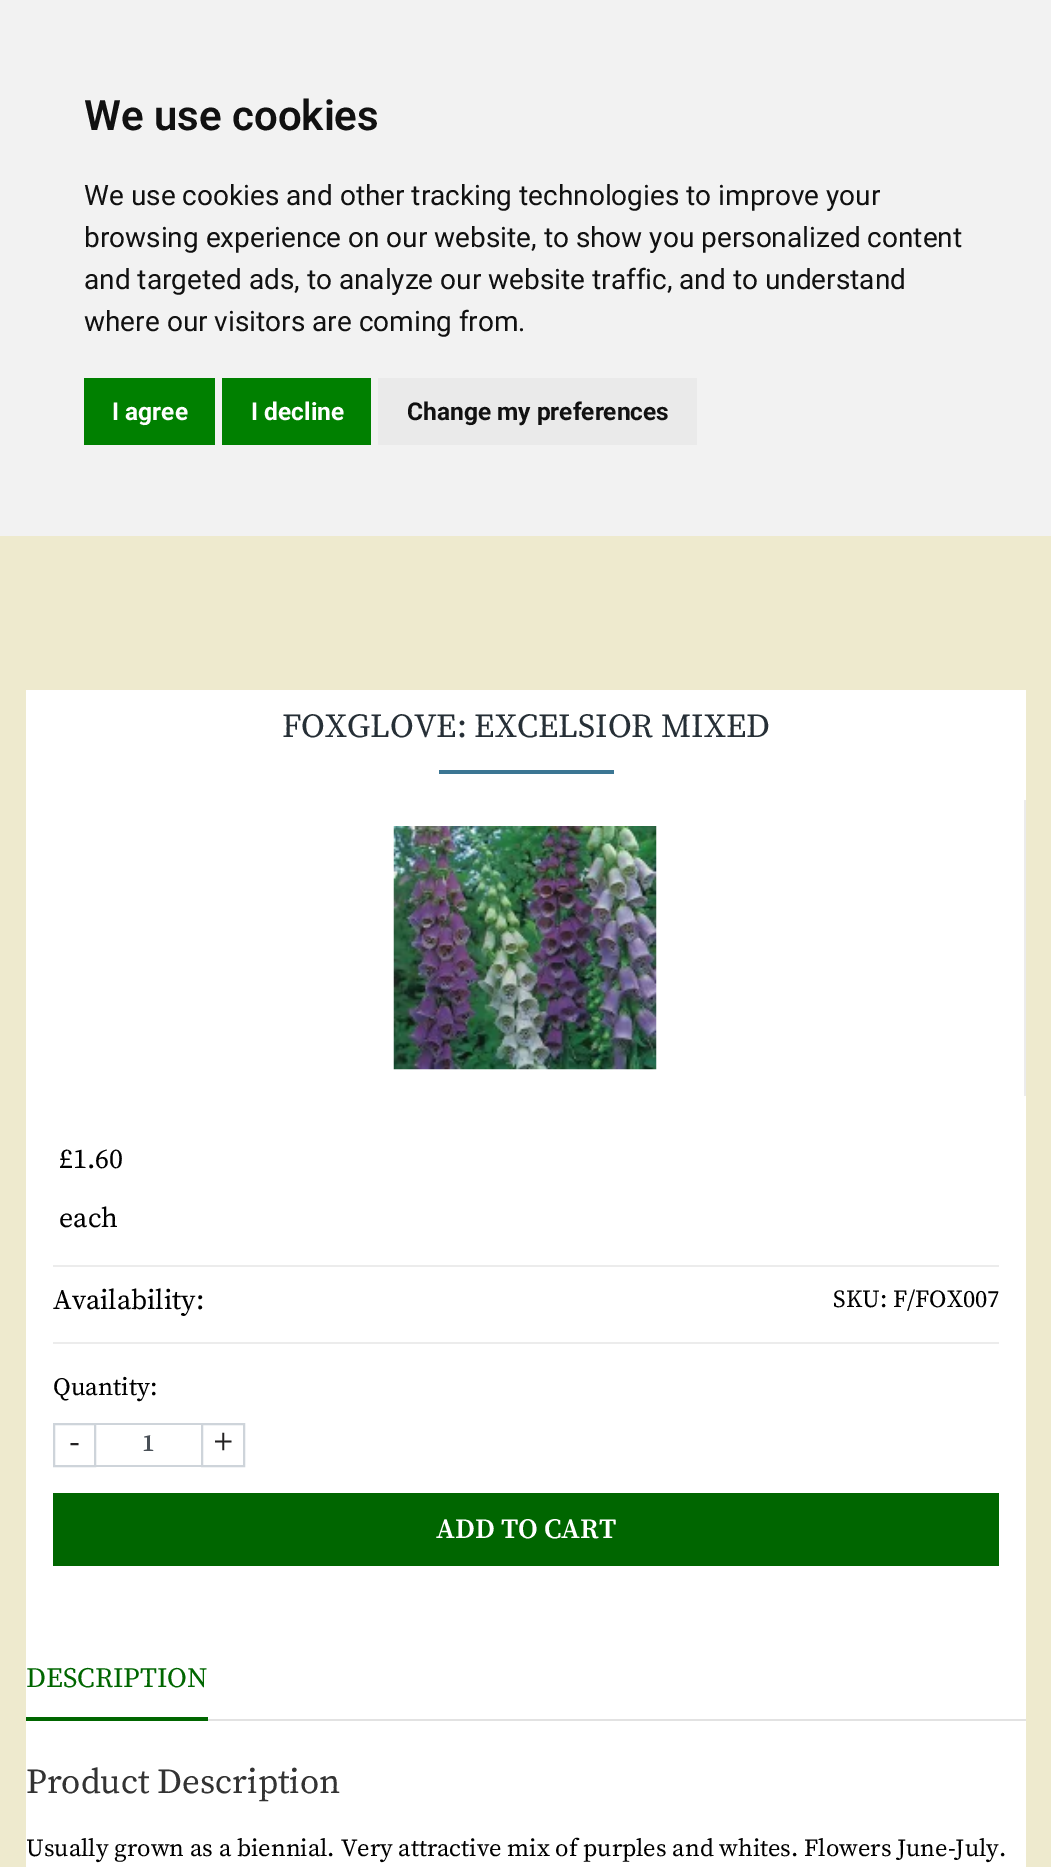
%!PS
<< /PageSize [1051 1867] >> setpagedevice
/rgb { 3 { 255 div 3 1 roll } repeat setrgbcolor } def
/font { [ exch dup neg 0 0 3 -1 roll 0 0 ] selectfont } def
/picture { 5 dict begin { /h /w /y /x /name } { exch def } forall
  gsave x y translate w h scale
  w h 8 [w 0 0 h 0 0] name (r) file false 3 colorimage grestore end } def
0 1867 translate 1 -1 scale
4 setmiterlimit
238 234 206 rgb
0 0 1051 1867 rectfill
[
  [0 0 1051 536 242 242 242]
  [84 378 131 67 0 128 0]
  [222 378 149 67 0 128 0]
  [378 378 319 67 234 234 234]
  [26 690 1000 1177 255 255 255]
  [439 770 175 4 59 118 147]
  [1024 800 2 296 236 236 236]
] { aload pop rgb rectfill } forall
(img/1.rgb) 393 826 264 244 picture
53 1265 946 2 rectfill
53 1342 946 2 rectfill
206 212 218 rgb
2 setlinewidth
54 1424 41 42 rectstroke
96 1423 105 2 rectfill
96 1465 105 2 rectfill
202 1424 42 42 rectstroke
[
  [53 1493 946 73 0 102 0]
  [208 1719 818 2 226 226 226]
  [26 1717 182 4 0 102 0]
] { aload pop rgb rectfill } forall
/Roboto-SemiBold 42 font
17 17 17 rgb
84 130 moveto (We use cookies) show
/Roboto-Regular 28 font
[
  [(We use cookies and other tracking technologies to improve your) 84 205]
  [(browsing experience on our website, to show you personalized content) 84 247]
  [(and targeted ads, to analyze our website traffic, and to understand) 84 289]
  [(where our visitors are coming from.) 84 331]
] { aload pop moveto show } forall
/Roboto-Bold 24.5 font
255 255 255 rgb
112 420 moveto (I agree) show
251 420 moveto (I decline) show
17 17 17 rgb
407 420 moveto (Change my preferences) show
/SourceSerifPro-Regular 33.6 font
38 47 54 rgb
282 737 moveto (FOXGLOVE: EXCELSIOR MIXED) show
/SourceSerifPro-Regular 28 font
0 0 0 rgb
[
  [(£1.60) 59 1168]
  [(each) 59 1227]
  [(Availability:) 53 1309]
] { aload pop moveto show } forall
/SourceSerifPro-Regular 24.5 font
833 1307 moveto (SKU:) show
893 1307 moveto (F/FOX007) show
/SourceSerifPro-Regular 25 font
53 1395 moveto (Quantity:) show
/SourceSerifPro-Regular 35 font
35 33 34 rgb
69 1453 moveto (-) show
/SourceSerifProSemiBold-SemiBold 24.5 font
73 80 87 rgb
142 1451 moveto (1) show
/SourceSerifPro-Regular 35 font
35 33 34 rgb
214 1453 moveto (+) show
/SourceSerifProSemiBold-SemiBold 28 font
255 255 255 rgb
436 1538 moveto (ADD TO CART) show
/SourceSerifPro-Regular 28 font
0 102 0 rgb
26 1687 moveto (DESCRIPTION) show
/SourceSerifPro-Regular 35 font
51 51 51 rgb
26 1793 moveto (Product Description) show
/SourceSerifPro-Regular 24.5 font
0 0 0 rgb
26 1856 moveto (Usually grown as a biennial. Very attractive mix of purples and whites. Flowers June-July.) show
showpage
